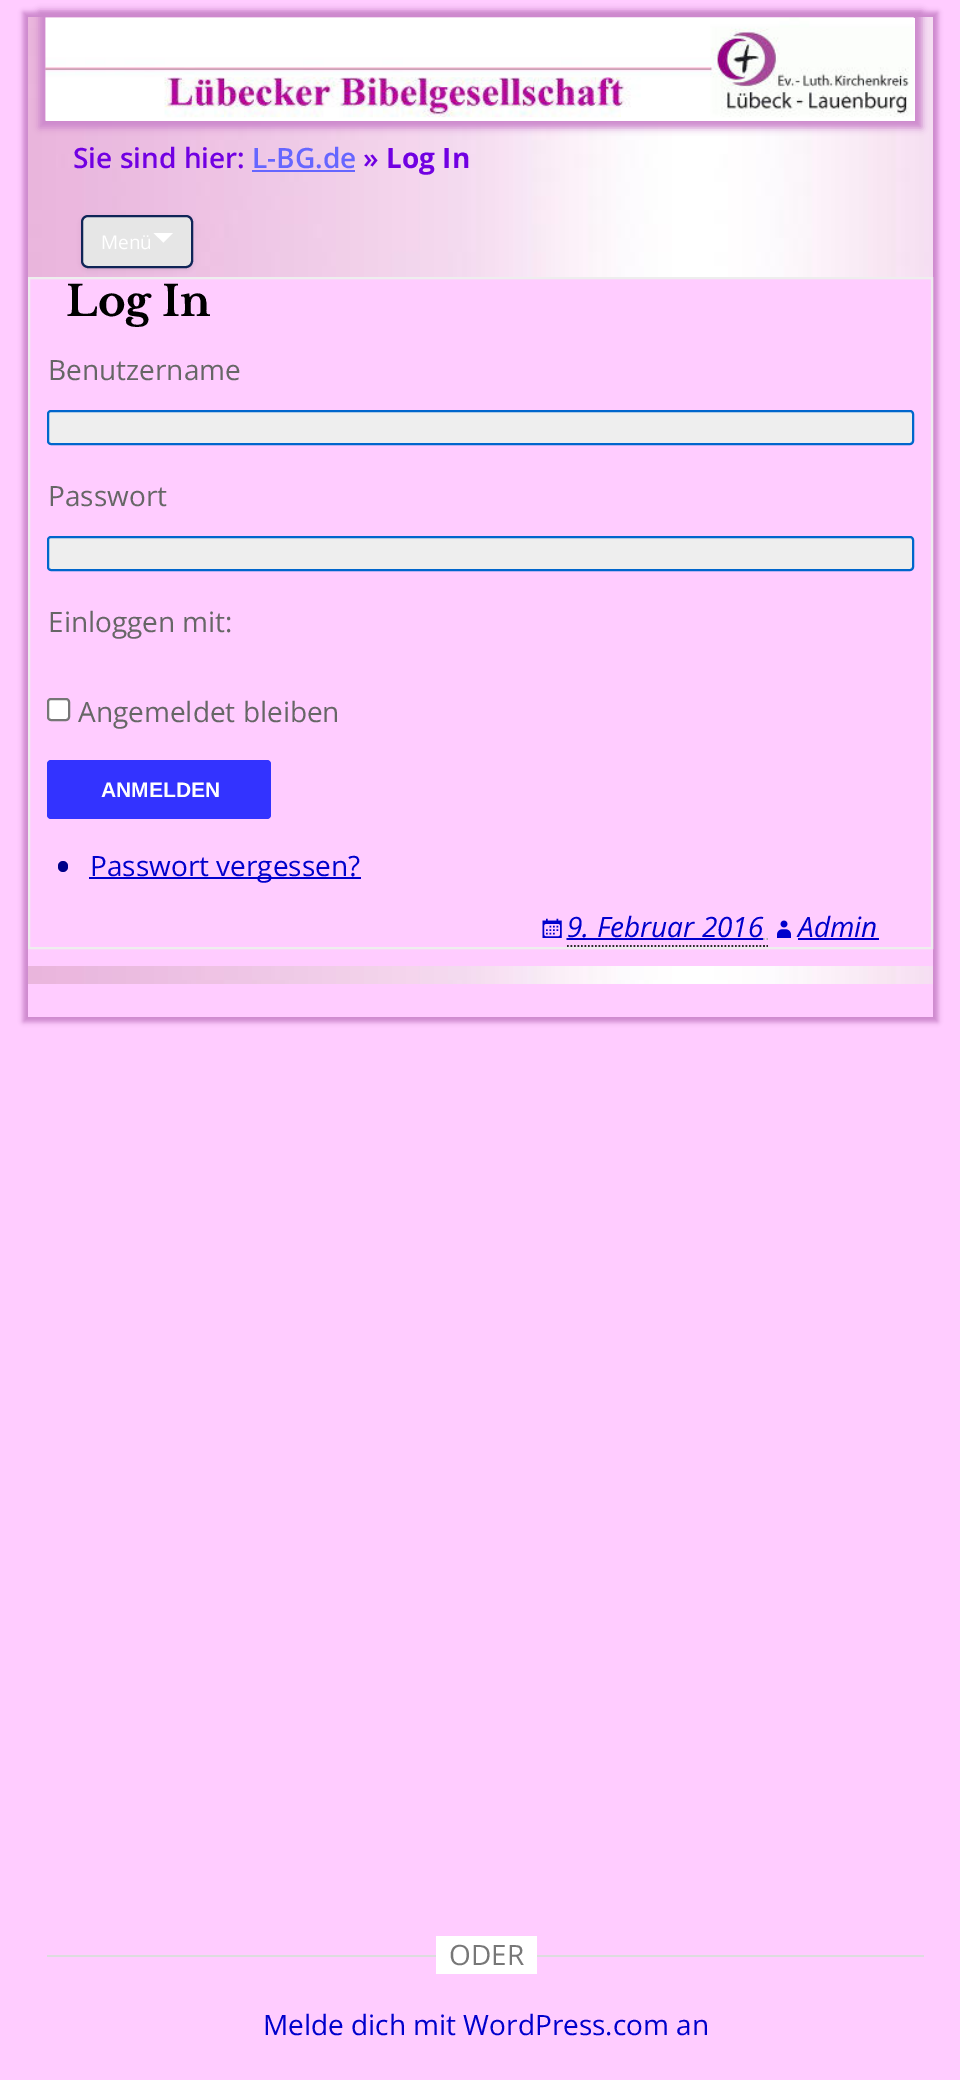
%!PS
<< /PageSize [960 2080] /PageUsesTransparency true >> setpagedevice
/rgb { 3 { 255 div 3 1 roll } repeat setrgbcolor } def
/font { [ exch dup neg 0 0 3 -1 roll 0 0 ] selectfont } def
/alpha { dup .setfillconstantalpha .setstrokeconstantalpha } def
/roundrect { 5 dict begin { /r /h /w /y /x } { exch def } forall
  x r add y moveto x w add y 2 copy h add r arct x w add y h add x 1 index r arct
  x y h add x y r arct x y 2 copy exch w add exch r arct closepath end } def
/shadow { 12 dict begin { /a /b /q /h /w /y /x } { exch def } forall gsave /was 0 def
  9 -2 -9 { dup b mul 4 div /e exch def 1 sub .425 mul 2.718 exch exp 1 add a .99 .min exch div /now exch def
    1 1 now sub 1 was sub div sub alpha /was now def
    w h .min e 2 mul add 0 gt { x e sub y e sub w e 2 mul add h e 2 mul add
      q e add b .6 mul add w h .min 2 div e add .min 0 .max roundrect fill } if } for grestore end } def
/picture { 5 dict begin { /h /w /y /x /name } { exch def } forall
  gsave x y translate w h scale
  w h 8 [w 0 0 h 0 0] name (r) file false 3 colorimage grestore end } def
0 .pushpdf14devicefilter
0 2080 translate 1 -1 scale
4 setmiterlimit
255 204 255 rgb
0 0 960 2080 rectfill
204 136 204 rgb
23 12 915 1010 0 2.5 1 shadow
(img/1.rgb) 28 17 905 967 picture
39 11 883 117 0 3.5 1 shadow
255 255 255 rgb
46 18 869 103 rectfill
(img/2.rgb) 45 17 869 104 picture
102 102 255 rgb
252 170 103 2 rectfill
51 51 51 rgb
81 217 112 53 7 2 0.1 shadow
230 230 230 rgb
82 216 110 51 6 roundrect gsave fill grestore
15 37 87 rgb
2 setlinewidth
stroke
255 255 255 rgb
153.5 233 moveto 173 233 lineto 163.5 242.5 lineto closepath fill
255 204 255 rgb
28 279 905 687 rectfill
238 238 238 rgb
29 278 903 670 rectstroke
48 411 865 33 3 roundrect gsave fill grestore
0 102 204 rgb
stroke
238 238 238 rgb
48 537 865 33 3 roundrect gsave fill grestore
0 102 204 rgb
stroke
255 255 255 rgb
48 699 21 21 3 roundrect gsave fill grestore
118 118 118 rgb
stroke
51 51 255 rgb
47 760 224 59 4 roundrect fill
220 220 222 rgb
47 1955 877 2 rectfill
255 255 255 rgb
436 1936 101 38 rectfill
0 0 136 rgb
58 861 10 11 5 roundrect fill
0 0 204 rgb
89 877 272 2 rectfill
(img/3.rgb) 542 918 20 20 picture
43 43 43 rgb
1.8 setlinewidth
[1.75 1.75] 0 setdash
567 946 moveto 763 946 lineto stroke
0 0 204 rgb
566.5 939 moveto 763 939 lineto stroke
567 938 196 2 rectfill
(img/4.rgb) 777 920 14 18 picture
798 938 81 2 rectfill
170 170 170 rgb
[] 0 setdash
763 939 moveto 764.5 939 lineto 766.5 939 moveto 768 939 lineto 770 939 moveto 770 939 lineto stroke
43 43 43 rgb
763 946 moveto 765 946 lineto 766.5 946 moveto 768 946 lineto stroke
255 204 255 rgb
28 984 905 33 rectfill
/OpenSans-SemiBold 28 font
113 0 226 rgb
73 168 moveto (Sie sind hier:) show
102 102 255 rgb
252 168 moveto (L-BG.de) show
113 0 226 rgb
363 168 moveto (») show
/OpenSans-Bold 28 font
386 168 moveto (Log In) show
/OpenSans-Regular 19 font
255 255 255 rgb
101 249 moveto (Menü) show
/LibreBaskerville-Bold 42 font
0 0 0 rgb
66 316 moveto (Log In) show
/OpenSans-Regular 28 font
102 102 102 rgb
[
  [(Benutzername) 48 380]
  [(Passwort) 48 506]
  [(Einloggen mit:) 48 632]
  [(Angemeldet bleiben) 78 722]
] { aload pop moveto show } forall
/LiberationSans-Bold 21 font
255 255 255 rgb
101 797 moveto (ANMELDEN) show
/OpenSans-Regular 28 font
119 119 119 rgb
449 1965 moveto (ODER) show
0 0 204 rgb
263 2035 moveto (Melde dich mit WordPress.com an) show
90 876 moveto (Passwort vergessen?) show
/OpenSans-Italic 28 font
567 937 moveto (9. Februar 2016) show
798 937 moveto (Admin) show
.poppdf14devicefilter showpage
